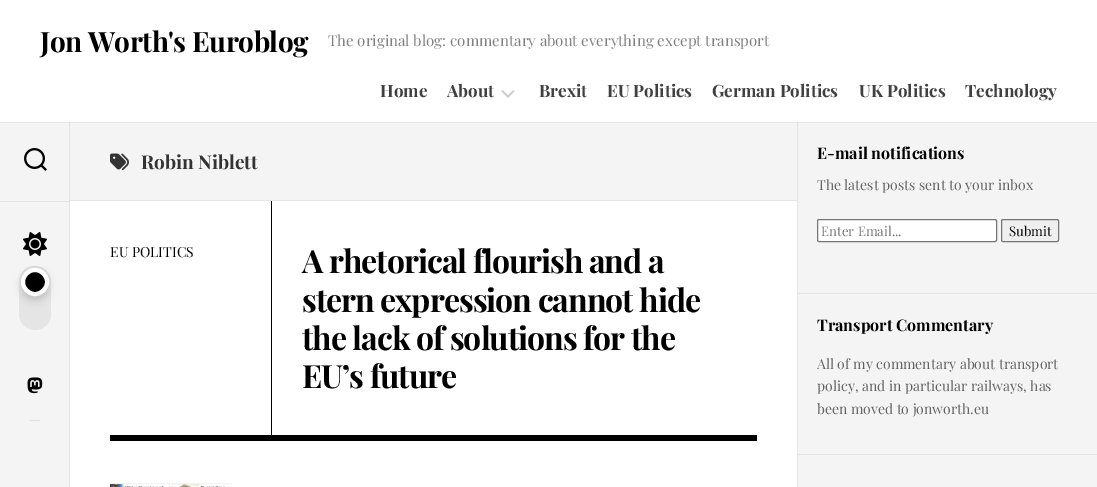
%!PS
<< /PageSize [1097 487] /PageUsesTransparency true >> setpagedevice
/rgb { 3 { 255 div 3 1 roll } repeat setrgbcolor } def
/font { [ exch dup neg 0 0 3 -1 roll 0 0 ] selectfont } def
/alpha { dup .setfillconstantalpha .setstrokeconstantalpha } def
/circle { newpath 0 360 arc closepath } def
/roundrect { 5 dict begin { /r /h /w /y /x } { exch def } forall
  x r add y moveto x w add y 2 copy h add r arct x w add y h add x 1 index r arct
  x y h add x y r arct x y 2 copy exch w add exch r arct closepath end } def
/shadow { 12 dict begin { /a /b /q /h /w /y /x } { exch def } forall gsave /was 0 def
  9 -2 -9 { dup b mul 4 div /e exch def 1 sub .425 mul 2.718 exch exp 1 add a .99 .min exch div /now exch def
    1 1 now sub 1 was sub div sub alpha /was now def
    w h .min e 2 mul add 0 gt { x e sub y e sub w e 2 mul add h e 2 mul add
      q e add b .6 mul add w h .min 2 div e add .min 0 .max roundrect fill } if } for grestore end } def
/picture { 5 dict begin { /h /w /y /x /name } { exch def } forall
  gsave x y translate w h scale
  w h 8 [w 0 0 h 0 0] name (r) file false 3 colorimage grestore end } def
0 .pushpdf14devicefilter
0 487 translate 1 -1 scale
4 setmiterlimit
255 255 255 rgb
0 0 1097 487 rectfill
(img/1.rgb) 501 90 14 8 picture
[
  [0 123 69 364 244 244 244]
  [0 201 70 1 229 229 229]
  [0 122 1097 1 232 232 232]
  [69 122 1 365 229 229 229]
  [69 122 1 1 218 218 218]
  [69 201 1 1 215 215 215]
] { aload pop rgb rectfill } forall
(img/2.rgb) 24 148 23 23 picture
(img/3.rgb) 23 232 24 24 picture
229 229 229 rgb
19 266 32 64 16 roundrect fill
0.05 alpha
0 0 0 rgb
35 267 moveto 44 267 51 274 51 283 curveto 51 260.5 19 260.5 19 283 curveto 19 274 26 267 35 267 curveto closepath fill
1 alpha
21 272 28 28 14 4 0.16 shadow
35 282 12 circle gsave fill grestore
255 255 255 rgb
4 setlinewidth
stroke
(img/4.rgb) 27 377 16 17 picture
[
  [30 420 10 1 224 224 224]
  [70 123 727 77 244 244 244]
  [70 200 727 1 229 229 229]
] { aload pop rgb rectfill } forall
(img/5.rgb) 110 153 19 18 picture
0 0 0 rgb
110 435 647 6 rectfill
271 201 1 234 rectfill
(img/6.rgb) 110 483 122 4 picture
[
  [798 123 299 364 244 244 244]
  [797 454 300 1 229 229 229]
  [797 293 300 1 229 229 229]
  [797 122 1 365 229 229 229]
  [797 122 1 1 218 218 218]
  [797 454 1 1 215 215 215]
  [797 293 1 1 215 215 215]
] { aload pop rgb rectfill } forall
255 255 255 rgb
817.5 219.5 179 22 1.5 roundrect gsave fill grestore
118 118 118 rgb
1 setlinewidth
stroke
239 239 239 rgb
1001.5 219.5 57 22 1.5 roundrect gsave fill grestore
118 118 118 rgb
stroke
/PlayfairDisplay-Bold 28 font
0 0 0 rgb
40 52 moveto -0.5 0 (Jon Worth's Euroblog) ashow
/PlayfairDisplay-Regular 15 font
128 128 128 rgb
328 46 moveto (The original blog: commentary about everything except transport) show
/PlayfairDisplay-Bold 17 font
64 64 64 rgb
[
  [(Home) 380 97]
  [(About) 447 97]
  [(Brexit) 539 97]
  [(EU Politics) 607 97]
  [(German Politics) 712 97]
  [(UK Politics) 859 97]
  [(Technology) 965 97]
] { aload pop moveto show } forall
/PlayfairDisplay-Bold 19 font
51 51 51 rgb
141 169 moveto (Robin Niblett) show
/PlayfairDisplay-Regular 14 font
0 0 0 rgb
110 257 moveto (EU POLITICS) show
/PlayfairDisplay-Bold 32 font
302 273 moveto -1 0 (A rhetorical flourish and a) ashow
302 312 moveto -1 0 (stern expression cannot hide) ashow
302 350 moveto -1 0 (the lack of solutions for the) ashow
302 388 moveto -1 0 (EU’s future) ashow
/PlayfairDisplay-Bold 16 font
817 159 moveto (E-mail notifications) show
/PlayfairDisplay-Regular 14 font
98 98 98 rgb
817 190 moveto (The latest posts sent to your inbox) show
/PlayfairDisplay-Regular 13.25 font
117 117 117 rgb
821 236 moveto (Enter Email...) show
0 0 0 rgb
1009 236 moveto (Submit) show
/PlayfairDisplay-Bold 16 font
817 331 moveto (Transport Commentary) show
/PlayfairDisplay-Regular 14 font
98 98 98 rgb
[
  [(All of my commentary about transport) 817 369]
  [(policy, and in particular railways, has) 817 391]
  [(been moved to jonworth.eu) 817 414]
] { aload pop moveto show } forall
.poppdf14devicefilter showpage
